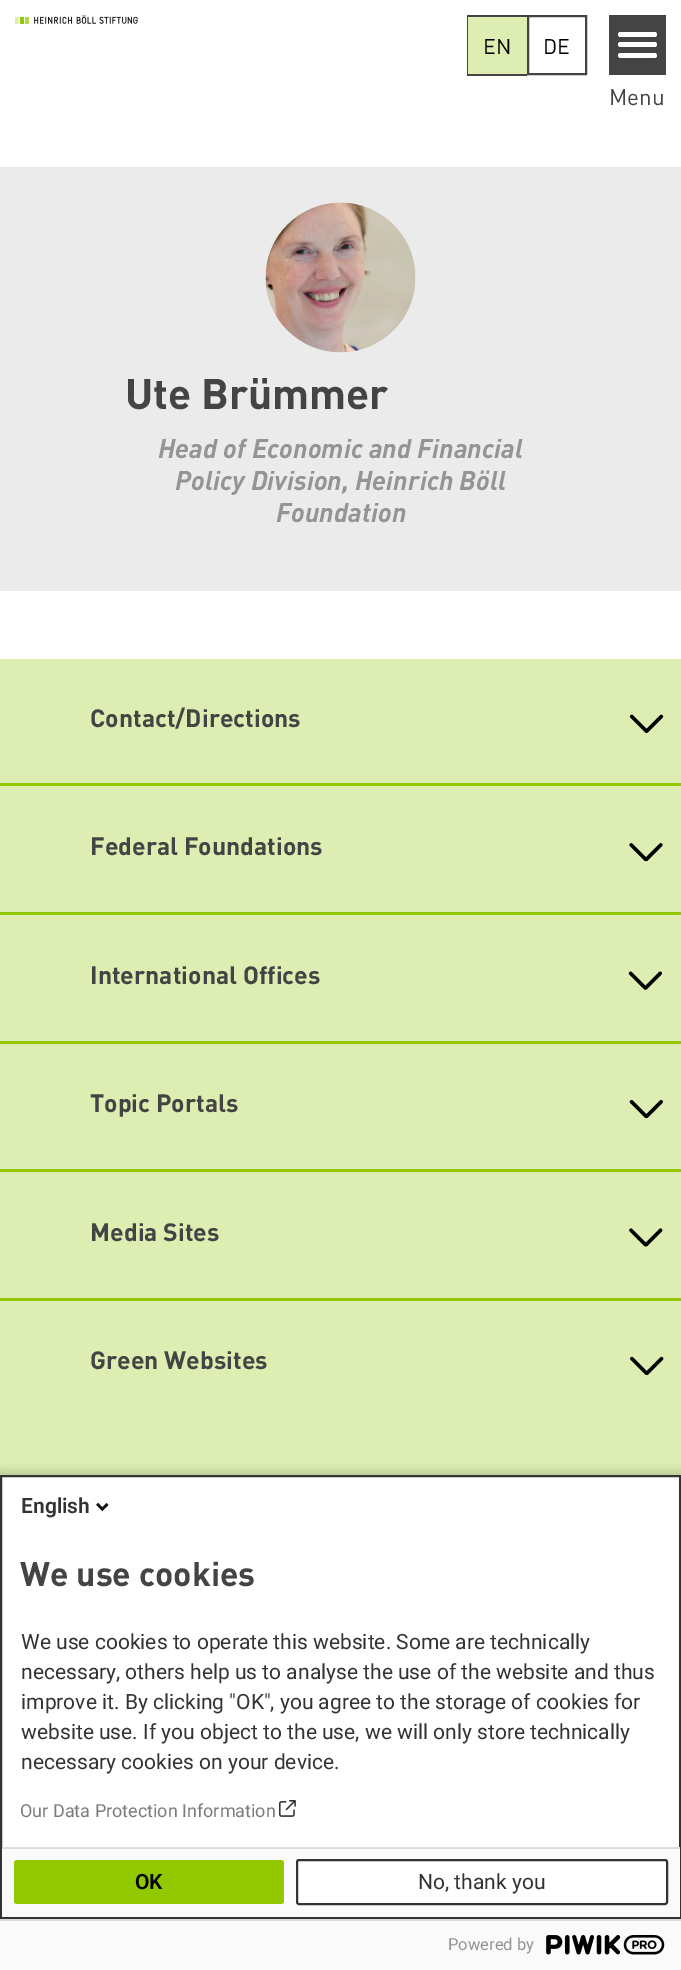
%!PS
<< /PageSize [681 1970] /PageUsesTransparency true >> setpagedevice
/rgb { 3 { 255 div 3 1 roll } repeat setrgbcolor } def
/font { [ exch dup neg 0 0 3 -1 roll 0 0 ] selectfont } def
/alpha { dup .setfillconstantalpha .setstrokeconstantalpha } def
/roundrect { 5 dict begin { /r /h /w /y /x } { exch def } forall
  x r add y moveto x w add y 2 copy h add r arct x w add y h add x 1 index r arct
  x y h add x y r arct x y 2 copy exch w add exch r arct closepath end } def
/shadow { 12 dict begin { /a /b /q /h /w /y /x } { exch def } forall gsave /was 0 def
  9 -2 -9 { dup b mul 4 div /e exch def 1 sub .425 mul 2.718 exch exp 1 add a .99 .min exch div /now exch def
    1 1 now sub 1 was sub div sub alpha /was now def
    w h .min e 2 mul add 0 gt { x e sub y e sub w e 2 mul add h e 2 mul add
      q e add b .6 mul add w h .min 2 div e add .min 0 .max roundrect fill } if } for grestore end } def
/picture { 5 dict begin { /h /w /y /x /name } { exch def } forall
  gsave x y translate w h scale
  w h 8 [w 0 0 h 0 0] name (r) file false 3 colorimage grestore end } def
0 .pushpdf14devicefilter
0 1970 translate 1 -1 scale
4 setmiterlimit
255 255 255 rgb
0 0 681 1970 rectfill
(img/1.rgb) 15 15 123 9 picture
[
  [467 15 60 2 68 68 68]
  [467 74 60 2 68 68 68]
  [467 15 2 60 68 68 68]
  [468 17 59 57 222 238 178]
] { aload pop rgb rectfill } forall
68 68 68 rgb
2 setlinewidth
528 16 58 58 rectstroke
609 15 57 60 rectfill
255 255 255 rgb
618 42 39 5 2.5 roundrect fill
618 32 39 5 2.5 roundrect fill
618 53 39 5 2.5 roundrect fill
235 235 235 rgb
0 167 681 424 rectfill
(img/2.rgb) 265 202 151 151 picture
222 238 178 rgb
0 659 681 816 rectfill
145 200 0 rgb
0 783 681 3 rectfill
(img/3.rgb) 629 714 35 19 picture
0 912 681 3 rectfill
(img/4.rgb) 629 843 34 19 picture
0 1041 681 3 rectfill
(img/5.rgb) 628 971 34 19 picture
0 1169 681 3 rectfill
(img/6.rgb) 629 1099 34 20 picture
0 1298 681 3 rectfill
(img/7.rgb) 629 1228 34 19 picture
(img/8.rgb) 630 1356 34 19 picture
0 0 0 rgb
-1 1470 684 500 0 4 0.14 shadow
255 255 255 rgb
2 1477 677 370 rectfill
51 51 51 rgb
1 1476 679 442 rectstroke
(img/9.rgb) 96 1502 13 10 picture
(img/10.rgb) 279 1800 17 17 picture
250 250 250 rgb
2 1849 678 68 rectfill
221 221 221 rgb
2 1847 678 2 rectfill
145 200 0 rgb
14 1860 270 44 3 roundrect fill
255 255 255 rgb
297 1860 370 44 2 roundrect gsave fill grestore
51 51 51 rgb
stroke
250 250 250 rgb
0 1921 681 49 rectfill
221 221 221 rgb
0 1919 681 2 rectfill
(img/11.rgb) 546 1935 119 20 picture
/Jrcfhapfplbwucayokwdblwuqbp-Regular 21 font
0 0 0 rgb
483 54 moveto (EN) show
543 54 moveto (DE) show
/Jrcfhapfplbwucayokwdblwuqbp-Regular 22.5 font
68 68 68 rgb
609 105 moveto (Menu) show
/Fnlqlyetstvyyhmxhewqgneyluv-Bold 42.25 font
125 409 moveto (Ute Brümmer) show
/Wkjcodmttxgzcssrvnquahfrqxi-BoldItalic 26.75 font
148 148 148 rgb
[
  [(Head of Economic and Financial) 158 458]
  [(Policy Division, Heinrich Böll) 175 490]
  [(Foundation) 276 522]
] { aload pop moveto show } forall
/Fnlqlyetstvyyhmxhewqgneyluv-Bold 24.75 font
68 68 68 rgb
[
  [(Contact/Directions) 90 727]
  [(Federal Foundations) 90 855]
  [(International Offices) 90 984]
  [(Topic Portals) 90 1112]
  [(Media Sites) 90 1241]
  [(Green Websites) 90 1369]
] { aload pop moveto show } forall
/Roboto-SemiBold 21 font
51 51 51 rgb
21 1513 moveto (English) show
/Fnlqlyetstvyyhmxhewqgneyluv-Bold 33.75 font
68 68 68 rgb
20 1586 moveto (We use cookies) show
/Roboto-Regular 21 font
51 51 51 rgb
[
  [(We use cookies to operate this website. Some are technically) 21 1649]
  [(necessary, others help us to analyse the use of the website and thus) 21 1679]
  [(improve it. By clicking "OK", you agree to the storage of cookies for) 21 1709]
  [(website use. If you object to the use, we will only store technically) 21 1739]
  [(necessary cookies on your device.) 21 1769]
] { aload pop moveto show } forall
/Roboto-Regular 18 font
124 124 124 rgb
20 1817 moveto (Our Data Protection Information) show
/Roboto-SemiBold 21 font
0 0 0 rgb
135 1889 moveto (OK) show
/Roboto-Regular 21 font
51 51 51 rgb
418 1889 moveto (No, thank you) show
/Roboto-Regular 16.5 font
148 148 148 rgb
448 1950 moveto (Powered by) show
.poppdf14devicefilter showpage
